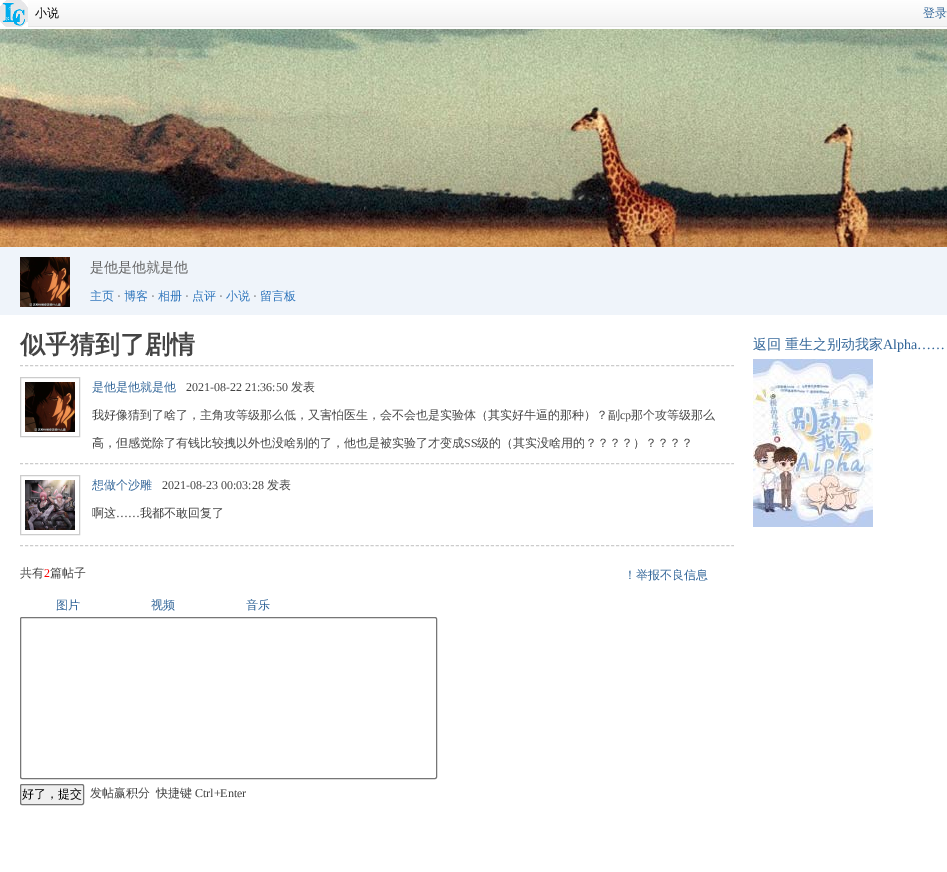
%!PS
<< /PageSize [947 872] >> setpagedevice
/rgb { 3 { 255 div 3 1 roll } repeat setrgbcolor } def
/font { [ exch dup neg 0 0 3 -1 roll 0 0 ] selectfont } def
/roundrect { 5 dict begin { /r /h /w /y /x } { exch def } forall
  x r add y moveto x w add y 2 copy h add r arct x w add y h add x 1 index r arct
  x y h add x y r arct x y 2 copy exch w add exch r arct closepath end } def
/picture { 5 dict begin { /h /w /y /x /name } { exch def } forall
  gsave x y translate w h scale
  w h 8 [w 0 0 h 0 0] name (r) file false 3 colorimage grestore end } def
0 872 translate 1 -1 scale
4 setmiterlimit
255 255 255 rgb
0 0 947 872 rectfill
(img/1.rgb) 0 29 947 218 picture
(img/2.rgb) 0 0 947 29 picture
(img/3.rgb) 0 0 28 27 picture
239 244 250 rgb
0 247 947 68 rectfill
(img/4.rgb) 20 257 50 50 picture
204 204 204 rgb
[3 2.01] 0 setdash
20 365.5 moveto 734 365.5 lineto stroke
[] 0 setdash
20.5 377.5 59 59 rectstroke
(img/4.rgb) 25 382 50 50 picture
[3 2.01] 0 setdash
20 463.5 moveto 734 463.5 lineto stroke
[] 0 setdash
20.5 475.5 59 59 rectstroke
(img/5.rgb) 25 480 50 50 picture
[3 2.01] 0 setdash
20 545.5 moveto 734 545.5 lineto stroke
118 118 118 rgb
[] 0 setdash
20.5 617.5 416 161 1.5 roundrect stroke
239 239 239 rgb
20.5 784.5 63 20 1.5 roundrect gsave fill grestore
118 118 118 rgb
stroke
(img/6.rgb) 753 359 120 168 picture
/WenQuanYiZenHei-Medium 12 font
0 0 0 rgb
35 17 moveto (小说) show
51 102 153 rgb
923 17 moveto (登录) show
/WenQuanYiZenHei-Medium 14 font
102 102 102 rgb
90 272 moveto (是他是他就是他) show
/WenQuanYiZenHei-Medium 12 font
46 117 188 rgb
90 300 moveto (主页) show
/LiberationSerif-Regular 12 font
102 102 102 rgb
117 300 moveto (·) show
/WenQuanYiZenHei-Medium 12 font
46 117 188 rgb
124 300 moveto (博客) show
/LiberationSerif-Regular 12 font
102 102 102 rgb
151 300 moveto (·) show
/WenQuanYiZenHei-Medium 12 font
46 117 188 rgb
158 300 moveto (相册) show
/LiberationSerif-Regular 12 font
102 102 102 rgb
185 300 moveto (·) show
/WenQuanYiZenHei-Medium 12 font
46 117 188 rgb
192 300 moveto (点评) show
/LiberationSerif-Regular 12 font
102 102 102 rgb
219 300 moveto (·) show
/WenQuanYiZenHei-Medium 12 font
46 117 188 rgb
226 300 moveto (小说) show
/LiberationSerif-Regular 12 font
102 102 102 rgb
253 300 moveto (·) show
/WenQuanYiZenHei-Medium 12 font
46 117 188 rgb
260 300 moveto (留言板) show
/WenQuanYiZenHei-Bold 25 font
68 68 68 rgb
20 353 moveto (似乎猜到了剧情) show
/WenQuanYiZenHei-Medium 12 font
51 102 153 rgb
92 391 moveto (是他是他就是他) show
/LiberationSerif-Regular 12 font
68 68 68 rgb
186 391 moveto (2021-08-22 21:36:50) show
/WenQuanYiZenHei-Medium 12 font
291 391 moveto (发表) show
92 419 moveto (我好像猜到了啥了，主角攻等级那么低，又害怕医生，会不会也是实验体（其实好牛逼的那种）？副) show
/LiberationSerif-Regular 12 font
620 419 moveto (cp) show
/WenQuanYiZenHei-Medium 12 font
631 419 moveto (那个攻等级那么) show
92 447 moveto (高，但感觉除了有钱比较拽以外也没啥别的了，他也是被实验了才变成) show
/LiberationSerif-Regular 12 font
464 447 moveto (SS) show
/WenQuanYiZenHei-Medium 12 font
477 447 moveto (级的（其实没啥用的？？？？）？？？？) show
51 102 153 rgb
92 489 moveto (想做个沙雕) show
/LiberationSerif-Regular 12 font
68 68 68 rgb
162 489 moveto (2021-08-23 00:03:28) show
/WenQuanYiZenHei-Medium 12 font
267 489 moveto (发表) show
92 517 moveto (啊这) show
/LiberationSerif-Regular 12 font
116 517 moveto (……) show
/WenQuanYiZenHei-Medium 12 font
140 517 moveto (我都不敢回复了) show
20 577 moveto (共有) show
/LiberationSerif-Regular 12 font
255 0 0 rgb
44 577 moveto (2) show
/WenQuanYiZenHei-Medium 12 font
68 68 68 rgb
50 577 moveto (篇帖子) show
51 102 153 rgb
[
  [(！举报不良信息) 624 579]
  [(图片) 56 609]
  [(视频) 151 609]
  [(音乐) 246 609]
] { aload pop moveto show } forall
0 0 0 rgb
22 798 moveto (好了，提交) show
68 68 68 rgb
90 797 moveto (发帖赢积分) show
156 797 moveto (快捷键) show
/LiberationSerif-Regular 12 font
195 797 moveto (Ctrl+Enter) show
/WenQuanYiZenHei-Medium 14 font
51 102 153 rgb
753 349 moveto (返回) show
785 349 moveto (重生之别动我家) show
/LiberationSerif-Regular 14 font
883 349 moveto (Alpha……) show
showpage
